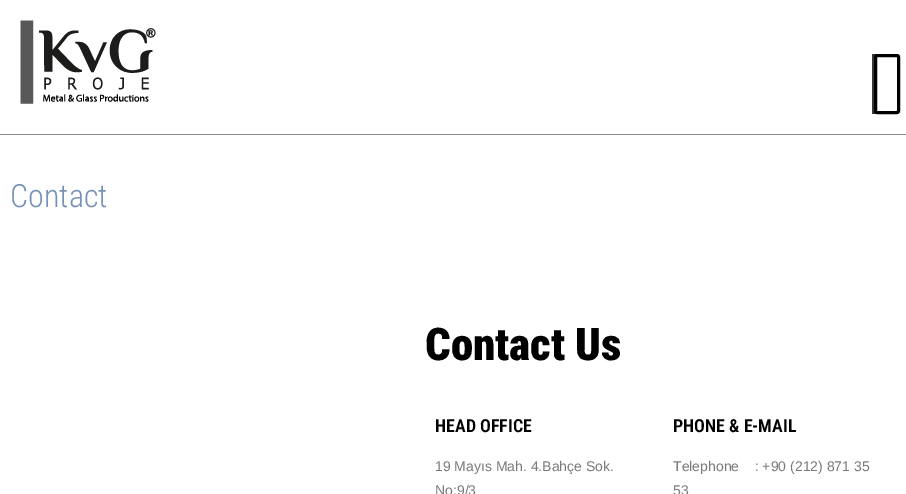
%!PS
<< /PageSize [906 494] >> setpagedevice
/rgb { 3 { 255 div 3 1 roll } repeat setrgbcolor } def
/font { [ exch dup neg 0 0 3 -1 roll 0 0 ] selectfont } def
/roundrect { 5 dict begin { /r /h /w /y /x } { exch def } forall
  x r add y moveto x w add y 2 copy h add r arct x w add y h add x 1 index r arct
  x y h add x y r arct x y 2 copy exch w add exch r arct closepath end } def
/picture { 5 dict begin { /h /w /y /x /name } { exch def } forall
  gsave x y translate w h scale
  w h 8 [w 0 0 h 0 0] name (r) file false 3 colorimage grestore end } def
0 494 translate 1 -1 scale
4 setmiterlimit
255 255 255 rgb
0 0 906 494 rectfill
138 138 138 rgb
0 134 906 1 rectfill
(img/1.rgb) 20 20 136 84 picture
56 56 56 rgb
872 54 5 60 rectfill
255 255 255 rgb
875.5 55.5 23 57 1.5 roundrect gsave fill grestore
0 0 0 rgb
3 setlinewidth
stroke
/RobotoCondensed-Light 32 font
117 145 182 rgb
10 207 moveto (Contact) show
/RobotoCondensed-Black 45 font
0 0 0 rgb
425 360 moveto (Contact Us) show
/RobotoCondensed-SemiBold 18 font
435 432 moveto (HEAD OFFICE) show
/LiberationSans-Regular 14 font
122 122 122 rgb
435 471 moveto (19 Mayıs Mah. 4.Bahçe Sok.) show
435 495 moveto (No:9/3) show
/RobotoCondensed-SemiBold 18 font
0 0 0 rgb
673 432 moveto (PHONE & E-MAIL) show
/LiberationSans-Regular 14 font
122 122 122 rgb
673 471 moveto (Telephone    : +90 \(212\) 871 35) show
673 495 moveto (53) show
showpage
